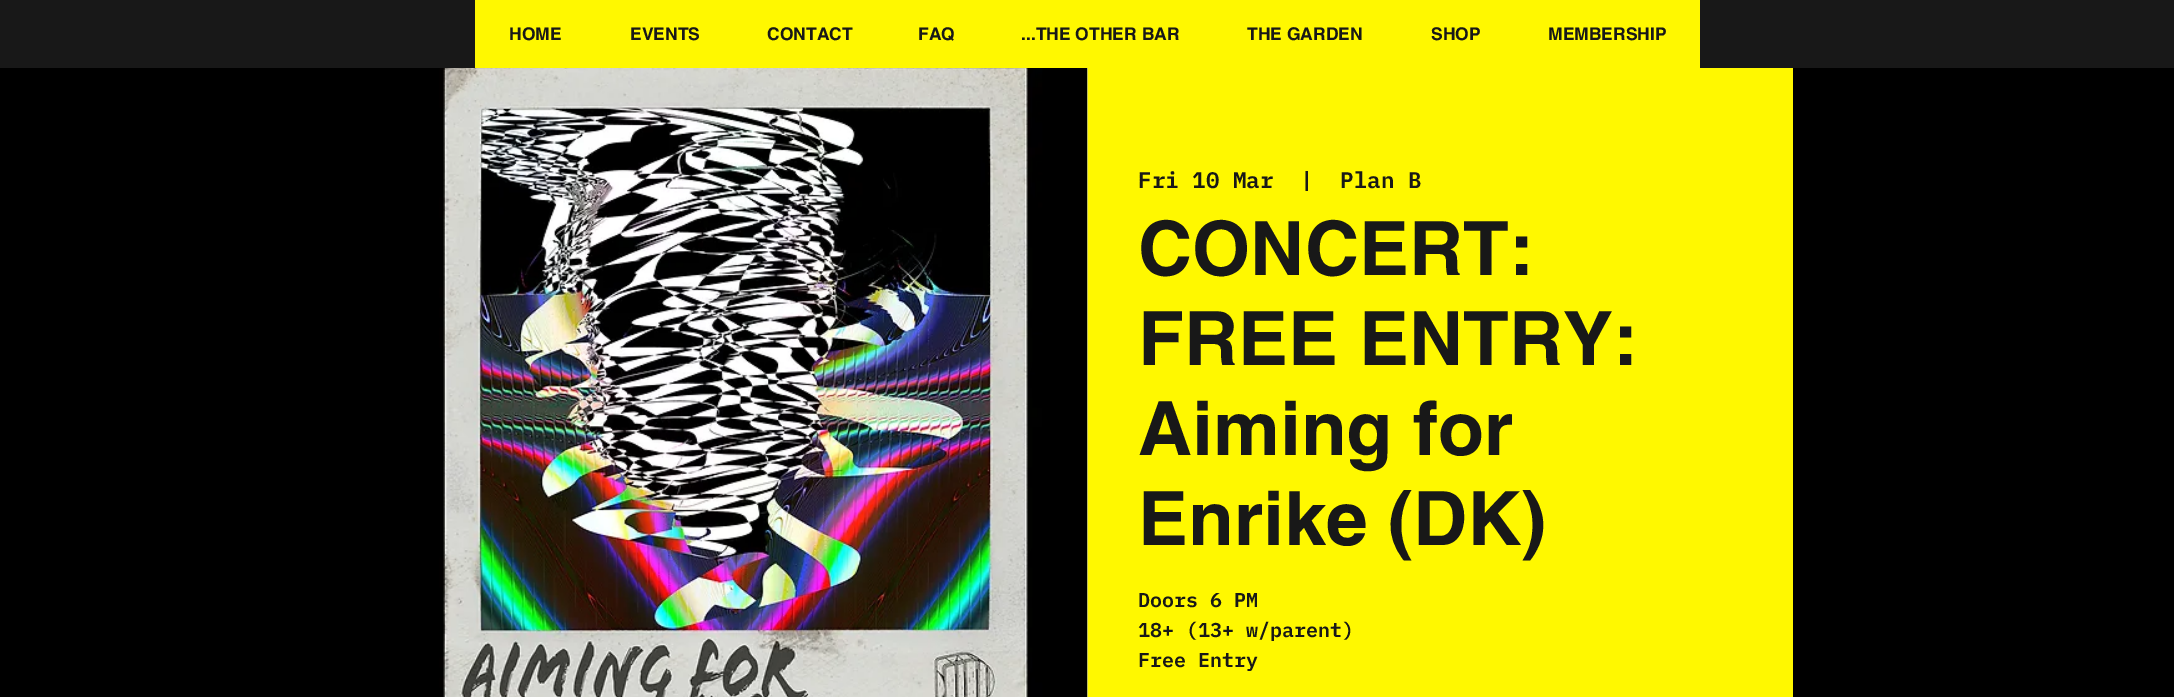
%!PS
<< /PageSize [2174 697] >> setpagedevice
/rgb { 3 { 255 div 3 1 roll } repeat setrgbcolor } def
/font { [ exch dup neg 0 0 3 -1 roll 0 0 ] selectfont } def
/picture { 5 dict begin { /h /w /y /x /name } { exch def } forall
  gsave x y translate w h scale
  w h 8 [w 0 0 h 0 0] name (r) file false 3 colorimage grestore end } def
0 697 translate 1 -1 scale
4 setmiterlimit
0 0 0 rgb
0 0 2174 697 rectfill
[
  [0 0 2174 68 24 24 24]
  [475 0 1225 68 255 248 0]
  [1087 68 1 629 255 252 128]
] { aload pop rgb rectfill } forall
(img/1.rgb) 384 68 704 629 picture
255 248 0 rgb
1088 68 705 629 rectfill
/helvetica-Bold 17.5 font
24 24 24 rgb
[
  [(HOME) 509 40]
  [(EVENTS) 630 40]
  [(CONTACT) 767 40]
  [(FAQ) 918 40]
  [(...THE OTHER BAR) 1021 40]
  [(THE GARDEN) 1247 40]
  [(SHOP) 1431 40]
  [(MEMBERSHIP) 1548 40]
] { aload pop moveto show } forall
/IBMPlexMono-SemiBold 22.5 font
[
  [(Fri 10 Mar) 1138 188]
  [(|) 1300 188]
  [(Plan B) 1340 188]
] { aload pop moveto show } forall
/helvetica-Bold 75 font
[
  [(CONCERT:) 1138 275]
  [(FREE ENTRY:) 1138 365]
  [(Aiming for) 1138 455]
  [(Enrike \(DK\)) 1138 545]
] { aload pop moveto show } forall
/IBMPlexMono-SemiBold 20 font
[
  [(Doors 6 PM) 1138 607]
  [(18+ \(13+ w/parent\)) 1138 637]
  [(Free Entry) 1138 667]
] { aload pop moveto show } forall
showpage
